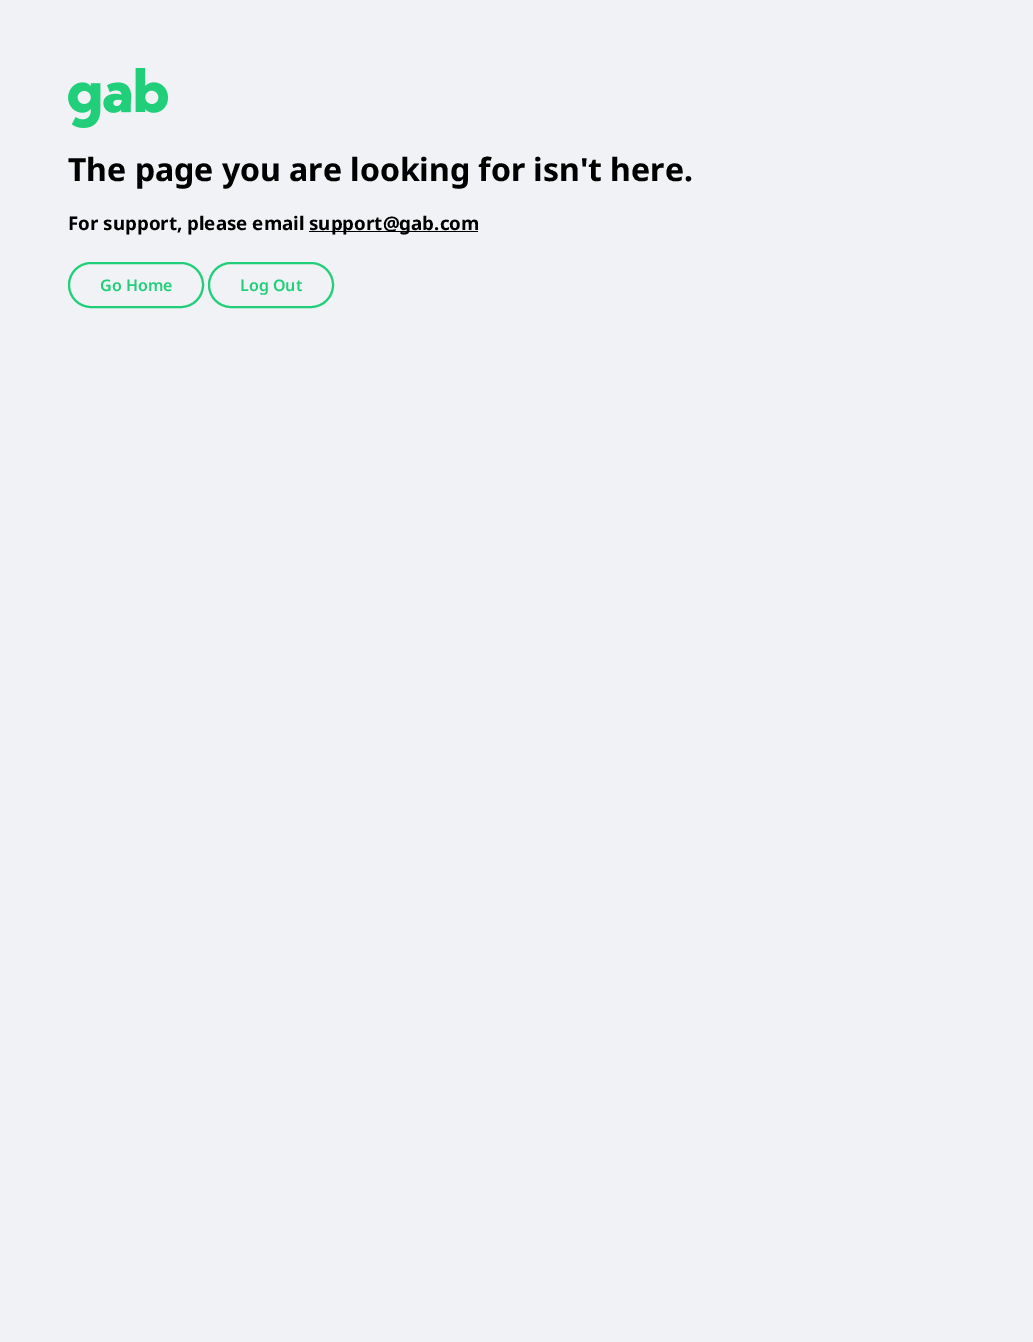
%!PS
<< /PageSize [1033 1342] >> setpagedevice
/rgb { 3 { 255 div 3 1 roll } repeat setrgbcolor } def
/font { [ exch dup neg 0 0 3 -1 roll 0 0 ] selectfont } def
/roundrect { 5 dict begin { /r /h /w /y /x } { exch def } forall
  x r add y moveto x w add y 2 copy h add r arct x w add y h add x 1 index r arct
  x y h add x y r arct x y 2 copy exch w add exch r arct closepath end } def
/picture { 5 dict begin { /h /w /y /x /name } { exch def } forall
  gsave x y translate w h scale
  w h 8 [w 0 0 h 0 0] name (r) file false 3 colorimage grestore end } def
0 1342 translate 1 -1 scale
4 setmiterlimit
240 242 245 rgb
0 0 1033 1342 rectfill
(img/1.rgb) 68 68 100 60 picture
0 0 0 rgb
309 231 169 1 rectfill
33 207 122 rgb
2 setlinewidth
69 263 134 44 22 roundrect stroke
209 263 124 44 22 roundrect stroke
/NotoSans-Bold 32 font
0 0 0 rgb
68 181 moveto (The page you are looking for isn't here.) show
/NotoSans-Bold 18.75 font
68 230 moveto (For support, please email) show
309 230 moveto (support@gab.com) show
/NotoSans-SemiBold 16 font
33 207 122 rgb
100 291 moveto (Go Home) show
240 291 moveto (Log Out) show
showpage
